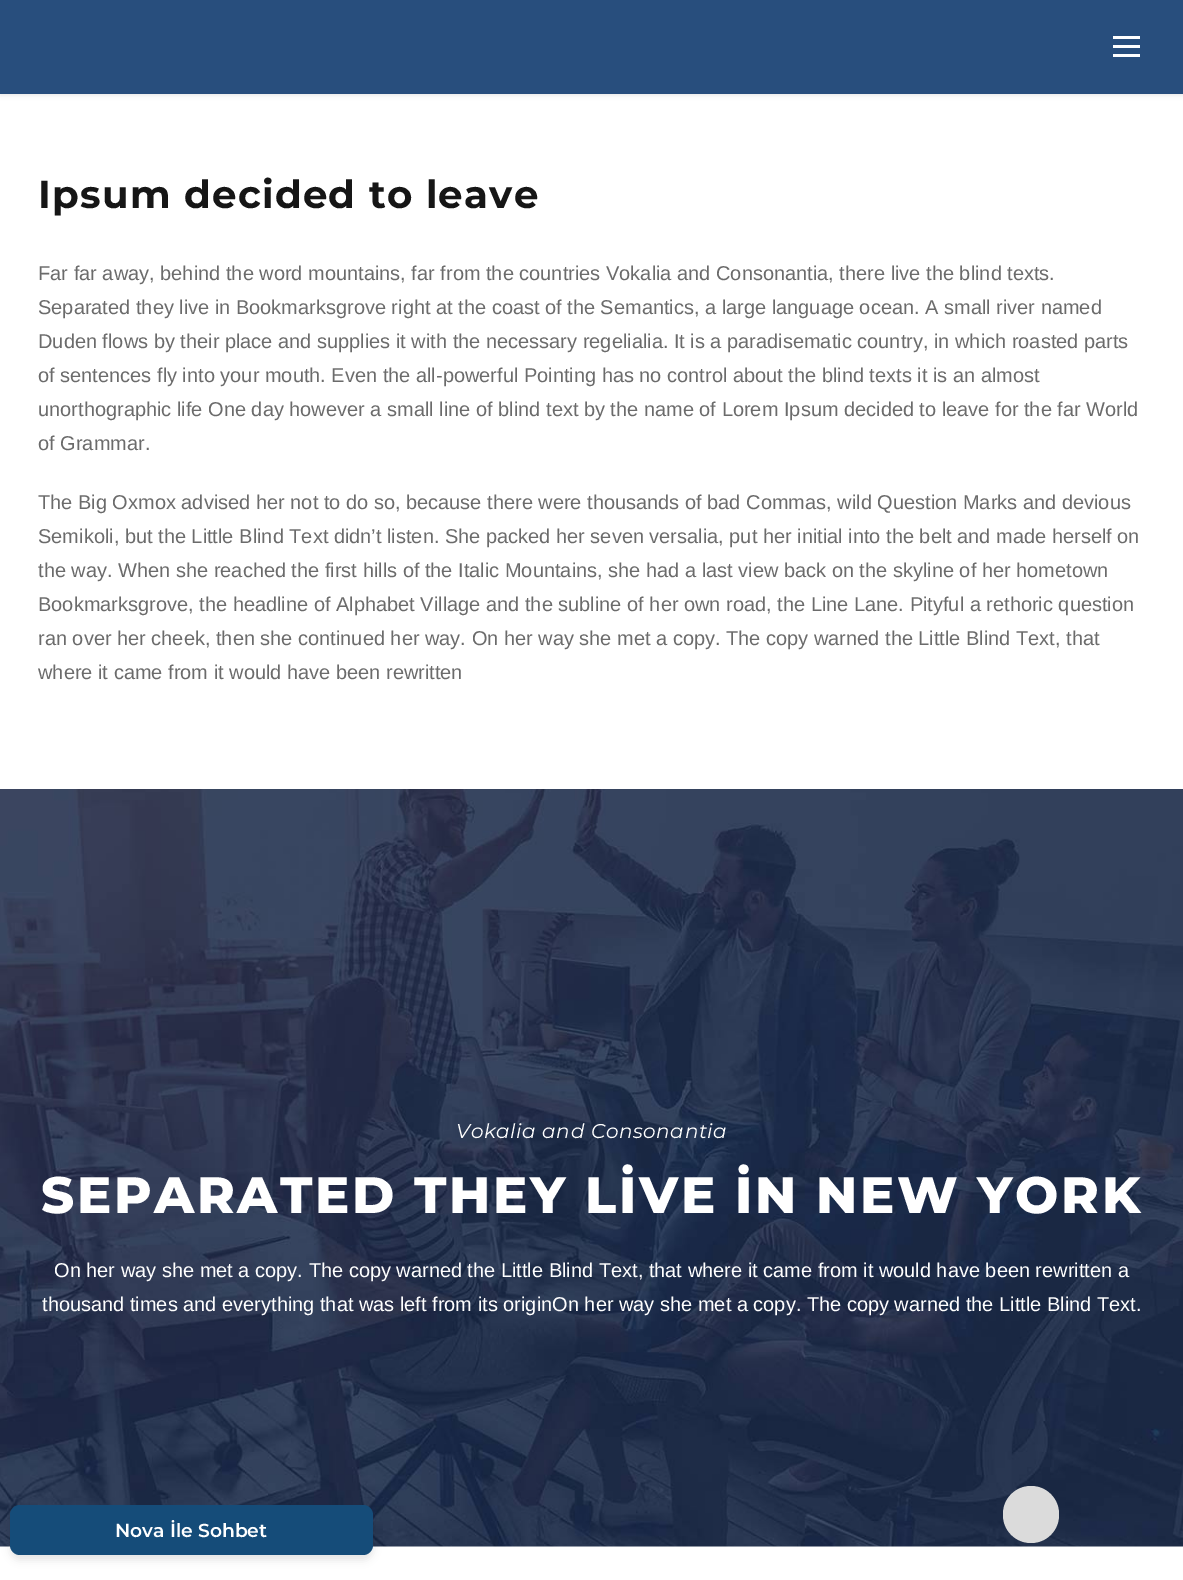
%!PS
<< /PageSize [1183 1580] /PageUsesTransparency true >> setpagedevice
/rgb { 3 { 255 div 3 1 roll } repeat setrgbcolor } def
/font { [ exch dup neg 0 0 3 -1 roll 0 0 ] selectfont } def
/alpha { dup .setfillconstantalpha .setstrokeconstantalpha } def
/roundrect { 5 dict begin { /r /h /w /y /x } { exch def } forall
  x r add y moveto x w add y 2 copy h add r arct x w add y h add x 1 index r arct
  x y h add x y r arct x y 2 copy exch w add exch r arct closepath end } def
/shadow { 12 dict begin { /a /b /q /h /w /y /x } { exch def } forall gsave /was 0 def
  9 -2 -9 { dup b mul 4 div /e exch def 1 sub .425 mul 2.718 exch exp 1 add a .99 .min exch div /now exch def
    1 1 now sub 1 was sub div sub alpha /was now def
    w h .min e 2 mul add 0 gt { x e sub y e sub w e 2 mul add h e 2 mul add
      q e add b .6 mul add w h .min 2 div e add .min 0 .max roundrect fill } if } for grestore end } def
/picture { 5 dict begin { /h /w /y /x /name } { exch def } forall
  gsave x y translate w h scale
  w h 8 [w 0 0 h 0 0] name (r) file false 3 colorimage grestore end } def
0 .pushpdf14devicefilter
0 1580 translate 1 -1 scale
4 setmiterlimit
255 255 255 rgb
0 0 1183 1580 rectfill
0 0 0 rgb
0 1 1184 94 0 2.5 0.1 shadow
[
  [0 0 1183 94 40 78 125]
  [1113 36 27 3 255 255 255]
  [1113 45 27 3 255 255 255]
  [1113 54 27 3 255 255 255]
] { aload pop rgb rectfill } forall
(img/1.rgb) 0 789 1183 758 picture
0 0 0 rgb
10 1510 363 50 10 4 0.1 shadow
21 76 121 rgb
10 1505 363 50 10 roundrect fill
219 219 219 rgb
1003 1486 56 57 28 roundrect fill
/Montserrat-Bold 38.75 font
22 22 22 rgb
38 208 moveto 1.25 0 (Ipsum decided to leave) ashow
/LiberationSans-Regular 20 font
107 107 107 rgb
[
  [(Far far away, behind the word mountains, far from the countries Vokalia and Consonantia, there live the blind texts.) 38 280]
  [(Separated they live in Bookmarksgrove right at the coast of the Semantics, a large language ocean. A small river named) 38 314]
  [(Duden flows by their place and supplies it with the necessary regelialia. It is a paradisematic country, in which roasted parts) 38 348]
  [(of sentences fly into your mouth. Even the all-powerful Pointing has no control about the blind texts it is an almost) 38 382]
  [(unorthographic life One day however a small line of blind text by the name of Lorem Ipsum decided to leave for the far World) 38 416]
  [(of Grammar.) 38 450]
  [(The Big Oxmox advised her not to do so, because there were thousands of bad Commas, wild Question Marks and devious) 38 509]
  [(Semikoli, but the Little Blind Text didn’t listen. She packed her seven versalia, put her initial into the belt and made herself on) 38 543]
  [(the way. When she reached the first hills of the Italic Mountains, she had a last view back on the skyline of her hometown) 38 577]
  [(Bookmarksgrove, the headline of Alphabet Village and the subline of her own road, the Line Lane. Pityful a rethoric question) 38 611]
  [(ran over her cheek, then she continued her way. On her way she met a copy. The copy warned the Little Blind Text, that) 38 645]
  [(where it came from it would have been rewritten) 38 679]
] { aload pop moveto show } forall
/Montserrat-Italic 20 font
255 255 255 rgb
456 1138 moveto 0.6 0 (Vokalia and Consonantia) ashow
/Montserrat-ExtraBold 51.25 font
41 1213 moveto 2.5 0 (SEPARATED THEY LİVE İN NEW YORK) ashow
/LiberationSans-Regular 20 font
54 1277 moveto (On her way she met a copy. The copy warned the Little Blind Text, that where it came from it would have been rewritten a) show
42 1311 moveto (thousand times and everything that was left from its originOn her way she met a copy. The copy warned the Little Blind Text.) show
/Montserrat-SemiBold 18.75 font
115 1537 moveto (Nova İle Sohbet) show
.poppdf14devicefilter showpage
